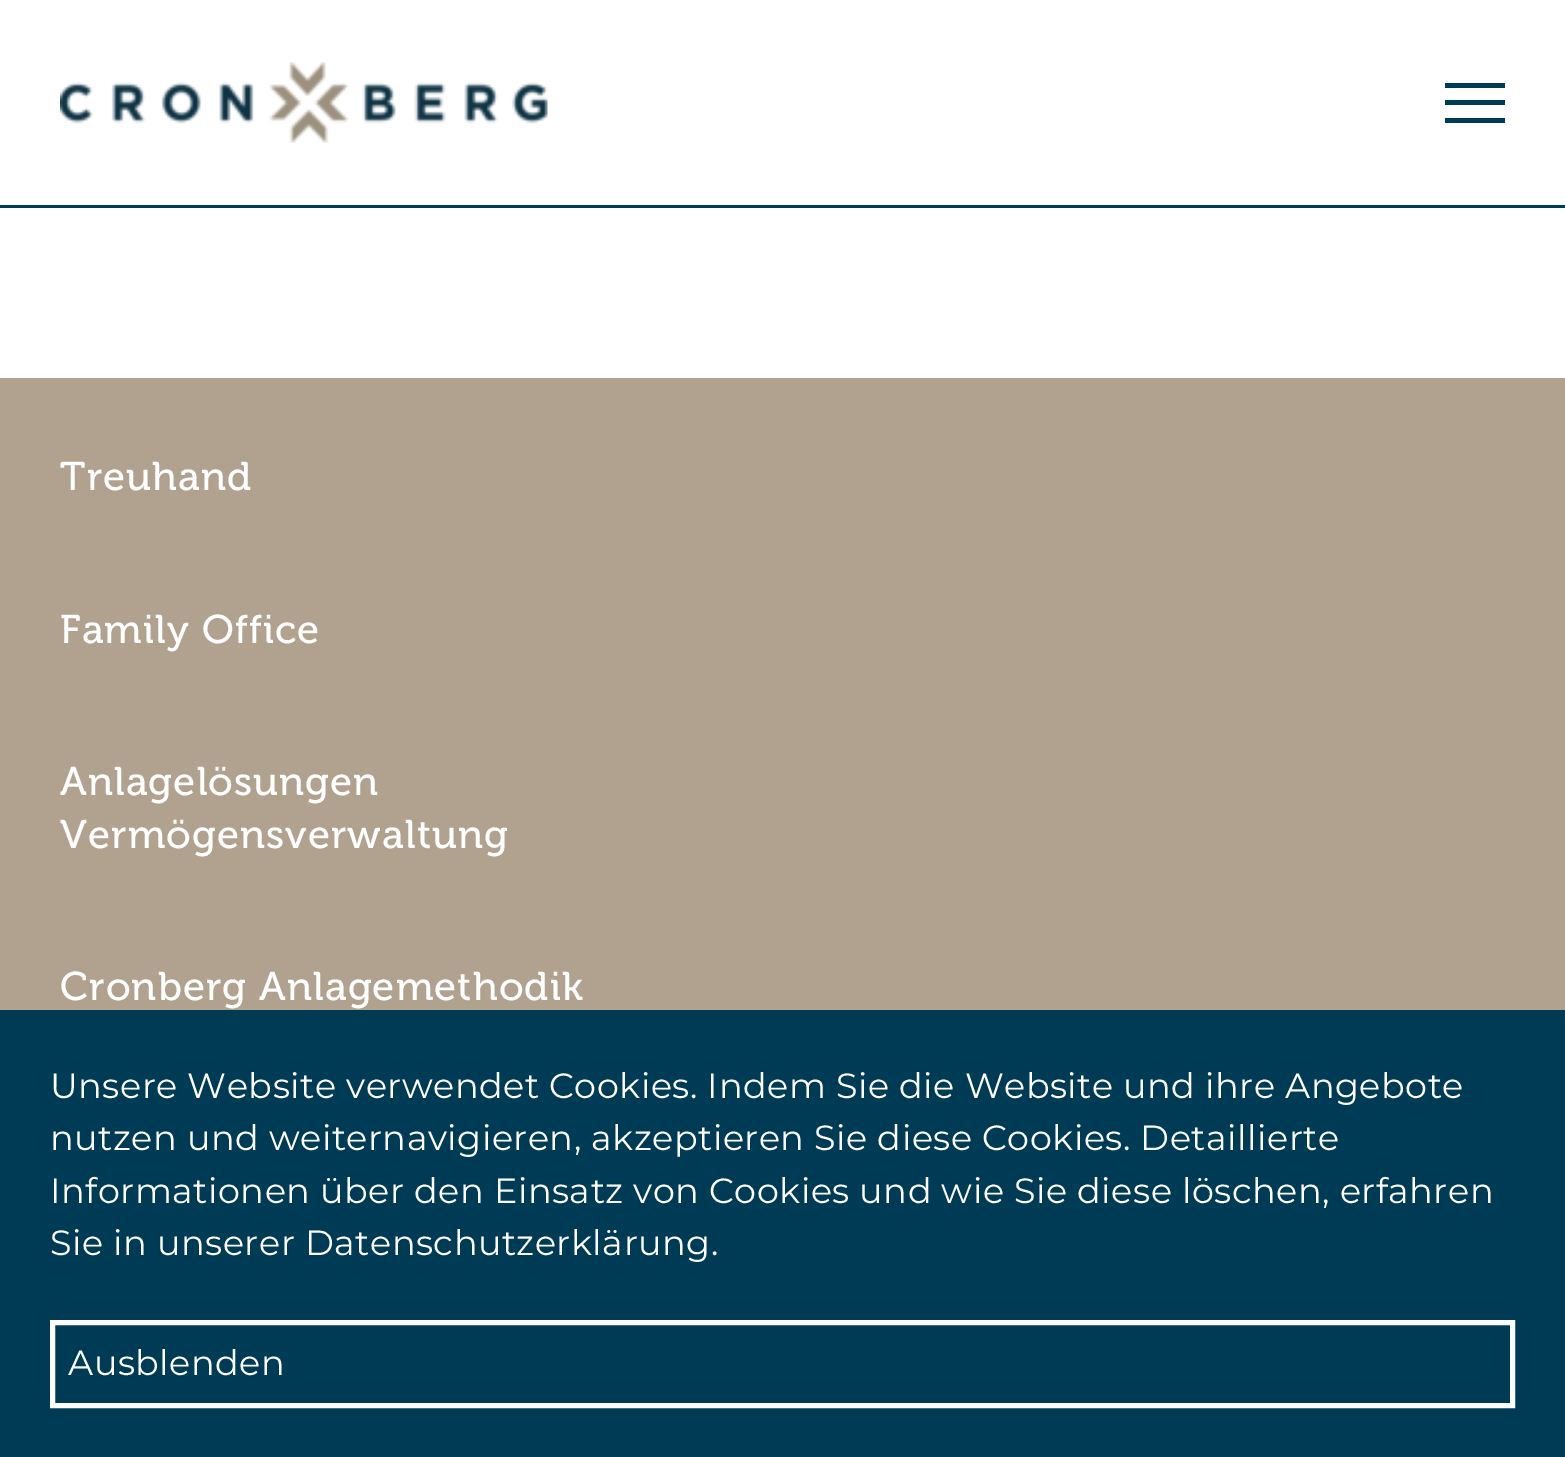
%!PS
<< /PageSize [1565 1457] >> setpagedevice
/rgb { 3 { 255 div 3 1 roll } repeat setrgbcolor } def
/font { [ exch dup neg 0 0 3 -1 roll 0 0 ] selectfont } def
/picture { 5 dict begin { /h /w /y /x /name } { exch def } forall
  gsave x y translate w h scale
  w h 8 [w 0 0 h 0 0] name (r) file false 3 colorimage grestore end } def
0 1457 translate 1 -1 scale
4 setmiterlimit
255 255 255 rgb
0 0 1565 1457 rectfill
0 59 85 rgb
0 205 1565 3 rectfill
(img/1.rgb) 60 62 488 81 picture
[
  [1445 83 60 5 0 59 85]
  [1445 118 60 5 0 59 85]
  [1445 100 60 5 0 59 85]
  [0 378 1565 632 177 161 143]
  [0 1010 1565 447 0 59 85]
] { aload pop rgb rectfill } forall
255 255 255 rgb
5 setlinewidth
52.5 1322.5 1460 83 rectstroke
/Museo-Regular 40 font
60 490 moveto 1.1 0 (Treuhand) ashow
60 643 moveto 1.1 0 (Family Office) ashow
60 795 moveto 1.1 0 (Anlagelösungen) ashow
60 848 moveto 1.1 0 (Vermögensverwaltung) ashow
60 1000 moveto 1.1 0 (Cronberg Anlagemethodik) ashow
/Montserrat-Regular 35 font
50 1098 moveto 0.5 0 (Unsere Website verwendet Cookies. Indem Sie die Website und ihre Angebote) ashow
50 1150 moveto 0.5 0 (nutzen und weiternavigieren, akzeptieren Sie diese Cookies. Detaillierte) ashow
50 1203 moveto 0.5 0 (Informationen über den Einsatz von Cookies und wie Sie diese löschen, erfahren) ashow
50 1255 moveto 0.5 0 (Sie in unserer Datenschutzerklärung.) ashow
68 1375 moveto 0.5 0 (Ausblenden) ashow
showpage
